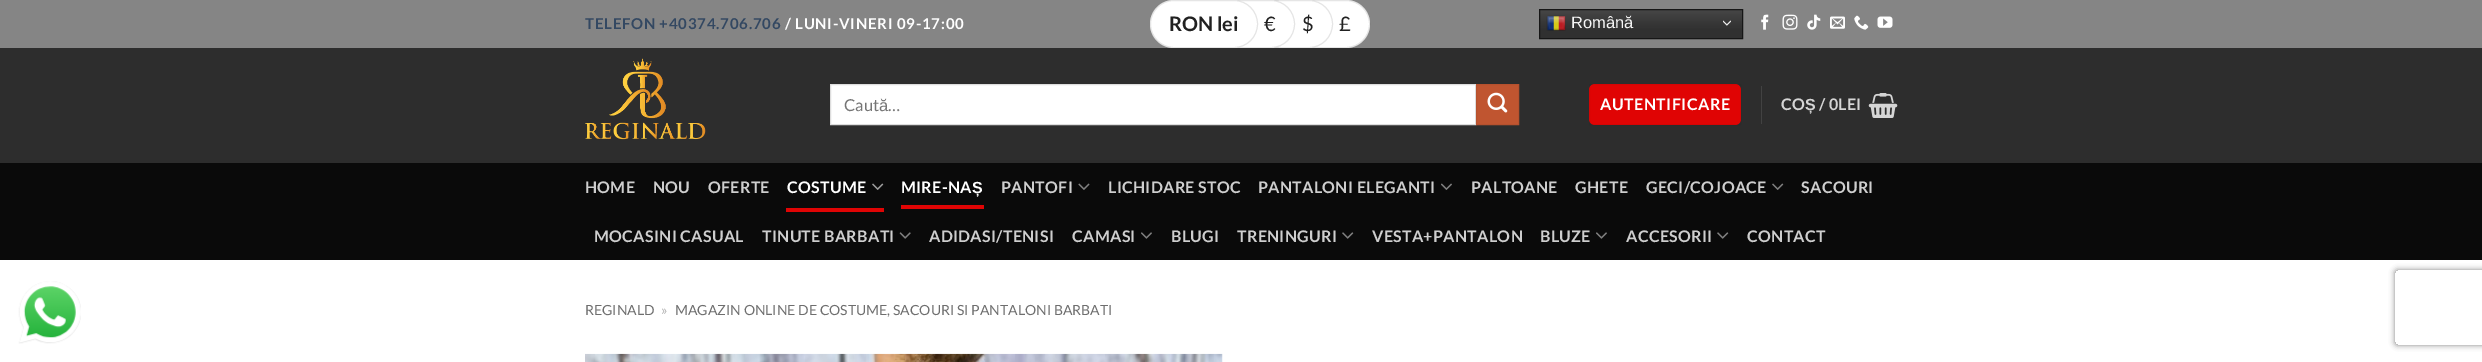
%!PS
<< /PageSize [2482 362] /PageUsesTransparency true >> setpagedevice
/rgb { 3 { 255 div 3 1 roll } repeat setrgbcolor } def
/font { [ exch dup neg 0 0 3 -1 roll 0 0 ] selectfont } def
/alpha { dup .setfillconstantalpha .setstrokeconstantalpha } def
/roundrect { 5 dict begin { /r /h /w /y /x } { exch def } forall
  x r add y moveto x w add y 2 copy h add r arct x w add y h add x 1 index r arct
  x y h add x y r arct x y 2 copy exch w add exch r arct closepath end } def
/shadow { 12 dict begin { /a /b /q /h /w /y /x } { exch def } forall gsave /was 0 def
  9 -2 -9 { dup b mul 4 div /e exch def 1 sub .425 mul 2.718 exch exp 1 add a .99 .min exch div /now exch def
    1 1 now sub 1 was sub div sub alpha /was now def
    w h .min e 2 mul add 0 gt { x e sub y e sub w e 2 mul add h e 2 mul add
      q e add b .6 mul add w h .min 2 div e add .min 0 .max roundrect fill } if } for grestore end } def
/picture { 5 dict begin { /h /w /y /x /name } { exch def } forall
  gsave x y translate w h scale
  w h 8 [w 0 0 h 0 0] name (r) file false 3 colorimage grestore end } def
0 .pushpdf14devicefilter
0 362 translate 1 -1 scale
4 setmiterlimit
255 255 255 rgb
0 0 2482 362 rectfill
(img/1.rgb) 18 281 63 63 picture
133 133 133 rgb
0 0 2482 48 rectfill
255 255 255 rgb
1295 0 75 48 24 roundrect fill
0.1 alpha
0 0 0 rgb
1295.5 0.5 74 47 23.5 roundrect stroke
1 alpha
255 255 255 rgb
1258 0 75 48 24 roundrect fill
0.1 alpha
0 0 0 rgb
1258.5 0.5 74 47 23.5 roundrect stroke
1 alpha
255 255 255 rgb
1220 0 75 48 24 roundrect fill
0.1 alpha
0 0 0 rgb
1220.5 0.5 74 47 23.5 roundrect stroke
1 alpha
255 255 255 rgb
1150 0 108 48 24 roundrect fill
0.1 alpha
0 0 0 rgb
1150.5 0.5 107 47 23.5 roundrect stroke
1 alpha
gsave 1540 10 moveto 1742 10 lineto 1742 38 lineto 1540 38 lineto closepath clip newpath
<< /ShadingType 2 /ColorSpace /DeviceRGB /Coords [1641 9 1641 39] /Extend [true true] /Function << /FunctionType 3 /Domain [0 1] /Functions [<< /FunctionType 2 /Domain [0 1] /C0 [0.278 0.278 0.278] /C1 [0.188 0.188 0.188] /N 1 >> << /FunctionType 2 /Domain [0 1] /C0 [0.188 0.188 0.188] /C1 [0.188 0.188 0.188] /N 1 >>] /Bounds [0.7] /Encode [0 1 0 1] >> >> shfill grestore
22 22 22 rgb
1539.5 9.5 203 29 rectstroke
(img/2.rgb) 1546 15 20 16 picture
(img/3.rgb) 1723 20 8 6 picture
(img/4.rgb) 1761 14 8 16 picture
(img/5.rgb) 1782 14 16 16 picture
(img/6.rgb) 1807 14 14 16 picture
(img/7.rgb) 1830 16 15 13 picture
(img/8.rgb) 1854 15 15 15 picture
(img/9.rgb) 1877 16 16 12 picture
45 45 45 rgb
0 48 2482 115 rectfill
(img/10.rgb) 585 58 121 82 picture
255 255 255 rgb
830.5 84.5 moveto 1475.5 84.5 lineto 1475.5 124.5 lineto 830.5 124.5 lineto closepath gsave fill grestore
221 221 221 rgb
stroke
192 85 48 rgb
1476.5 84.5 moveto 1518.5 84.5 lineto 1518.5 124.5 lineto 1476.5 124.5 lineto closepath gsave fill grestore
182 81 46 rgb
stroke
(img/11.rgb) 1487 92 21 21 picture
224 4 4 rgb
1589 84 152 41 6 roundrect fill
0.05 alpha
0 0 0 rgb
1589.5 84.5 151 40 rectstroke
1 alpha
66 66 66 rgb
1761 86 1 38 rectfill
(img/12.rgb) 1868 93 30 25 picture
10 10 10 rgb
0 163 2482 97 rectfill
(img/13.rgb) 872 183 12 7 picture
224 4 4 rgb
786 208 98 4 rectfill
901 205 83 4 rectfill
(img/14.rgb) 1078 183 12 7 picture
(img/15.rgb) 1441 183 11 7 picture
(img/16.rgb) 1772 183 12 7 picture
(img/17.rgb) 899 232 12 7 picture
(img/18.rgb) 1141 232 11 7 picture
(img/19.rgb) 1342 232 12 7 picture
(img/18.rgb) 1596 232 11 7 picture
(img/19.rgb) 1717 232 12 7 picture
(img/20.rgb) 585 353 638 9 picture
gsave
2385 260 moveto 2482 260 lineto 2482 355 lineto 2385 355 lineto closepath 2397.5 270 moveto 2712.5 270 lineto 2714 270 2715 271 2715 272.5 curveto 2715 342.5 lineto 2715 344 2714 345 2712.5 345 curveto 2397.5 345 lineto 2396 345 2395 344 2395 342.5 curveto 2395 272.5 lineto 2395 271 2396 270 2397.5 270 curveto closepath eoclip newpath
128 128 128 rgb
2395 270 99 75 2.5 3 1 shadow
grestore
/Lato-Bold 15 font
51 72 98 rgb
585 29 moveto 0.75 0 (TELEFON +40374.706.706) ashow
255 255 255 rgb
785 29 moveto 0.75 0 (/ LUNI-VINERI 09-17:00) ashow
/Lato-Bold 20 font
33 33 33 rgb
1169 31 moveto (RON lei) show
/Lato-Regular 20 font
[
  [(€) 1264 31]
  [($) 1302 31]
  [(£) 1339 31]
] { aload pop moveto show } forall
/LiberationSans-Regular 16.5 font
247 247 247 rgb
1571 28 moveto (Română) show
/Lato-Regular 16.5 font
117 117 117 rgb
844 111 moveto (Caut) show
/LiberationSans-Regular 16.5 font
879 111 moveto (ă) show
/Lato-Regular 16.5 font
888 111 moveto (…) show
/Lato-Bold 16 font
255 255 255 rgb
1600 110 moveto 0.5 0 (AUTENTIFICARE) ashow
213 213 213 rgb
1781 110 moveto 0.3 0 (CO) ashow
/LiberationSans-Bold 16 font
1805 110 moveto 0.3 0 (Ș) ashow
/Lato-Bold 16 font
1819 110 moveto 0.3 0 (/ 0LEI) ashow
206 206 206 rgb
585 193 moveto 0.3 0 (HOME) ashow
653 193 moveto 0.3 0 (NOU) ashow
708 193 moveto 0.3 0 (OFERTE) ashow
255 255 255 rgb
787 193 moveto 0.3 0 (COSTUME) ashow
901 193 moveto 0.3 0 (MIRE-NA) ashow
/LiberationSans-Bold 16 font
972 193 moveto 0.3 0 (Ș) ashow
/Lato-Bold 16 font
206 206 206 rgb
1001 193 moveto 0.3 0 (PANTOFI) ashow
1108 193 moveto 0.3 0 (LICHIDARE STOC) ashow
1258 193 moveto 0.3 0 (PANTALONI ELEGANTI) ashow
1471 193 moveto 0.3 0 (PALTOANE) ashow
1575 193 moveto 0.3 0 (GHETE) ashow
1646 193 moveto 0.3 0 (GECI/COJOACE) ashow
1801 193 moveto 0.3 0 (SACOURI) ashow
594 242 moveto 0.3 0 (MOCASINI CASUAL) ashow
762 242 moveto 0.3 0 (TINUTE BARBATI) ashow
929 242 moveto 0.3 0 (ADIDASI/TENISI) ashow
1072 242 moveto 0.3 0 (CAMASI) ashow
1171 242 moveto 0.3 0 (BLUGI) ashow
1237 242 moveto 0.3 0 (TRENINGURI) ashow
1372 242 moveto 0.3 0 (VESTA+PANTALON) ashow
1540 242 moveto 0.3 0 (BLUZE) ashow
1626 242 moveto 0.3 0 (ACCESORII) ashow
1747 242 moveto 0.3 0 (CONTACT) ashow
/Lato-Regular 14 font
110 110 110 rgb
585 315 moveto (REGINALD) show
178 178 178 rgb
661 315 moveto (») show
110 110 110 rgb
675 315 moveto (MAGAZIN ONLINE DE COSTUME, SACOURI SI PANTALONI BARBATI) show
.poppdf14devicefilter showpage
